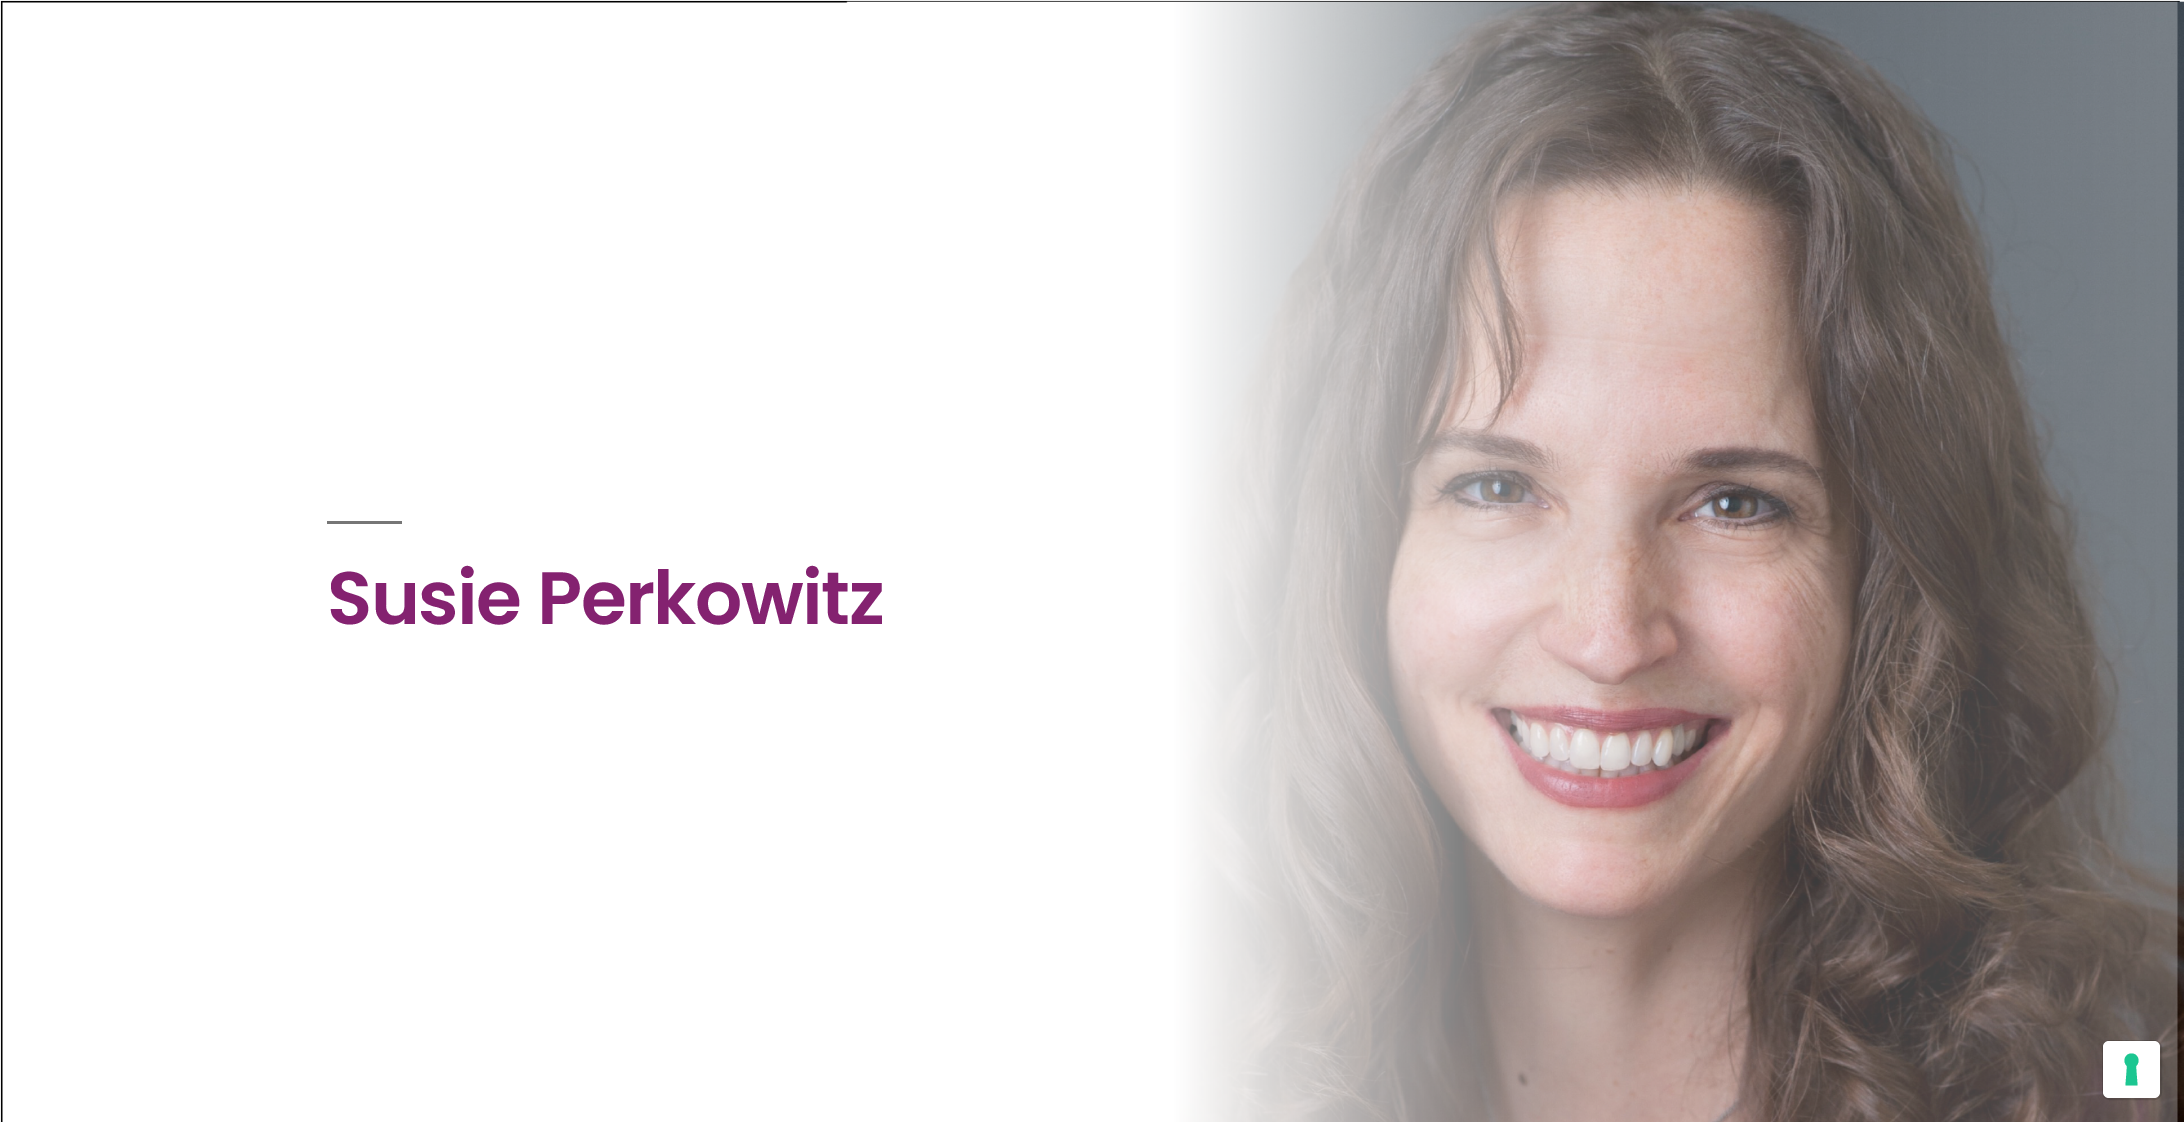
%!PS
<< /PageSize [2184 1122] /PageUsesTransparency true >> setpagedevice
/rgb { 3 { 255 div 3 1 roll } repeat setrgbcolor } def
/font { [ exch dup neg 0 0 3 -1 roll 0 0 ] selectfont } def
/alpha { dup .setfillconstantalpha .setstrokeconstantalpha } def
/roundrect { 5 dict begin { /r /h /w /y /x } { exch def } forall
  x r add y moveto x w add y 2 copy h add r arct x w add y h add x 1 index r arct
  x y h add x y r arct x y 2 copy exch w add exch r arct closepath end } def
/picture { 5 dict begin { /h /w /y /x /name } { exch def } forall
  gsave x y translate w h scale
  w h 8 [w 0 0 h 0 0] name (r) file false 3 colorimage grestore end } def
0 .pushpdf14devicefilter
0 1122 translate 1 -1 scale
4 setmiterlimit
255 255 255 rgb
0 0 2184 1122 rectfill
(img/1.rgb) 0 0 2184 1122 picture
118 118 118 rgb
327 521 75 3 rectfill
0.15 alpha
0 0 0 rgb
2 setlinewidth
2103 1041 58 58 7 roundrect stroke
1 alpha
255 255 255 rgb
2103 1041 57 57 6 roundrect fill
28 198 145 rgb
2131.5 1053.5 moveto 2138 1053.5 2141 1061.5 2136 1066 curveto 2137.5 1085.5 lineto 2125.5 1085.5 lineto 2127 1066 lineto 2122 1061.5 2125 1053.5 2131.5 1053.5 curveto closepath eofill
/Poppins-SemiBold 74.25 font
132 34 112 rgb
327 624 moveto -1.5 0 (Susie Perkowitz) ashow
.poppdf14devicefilter showpage
